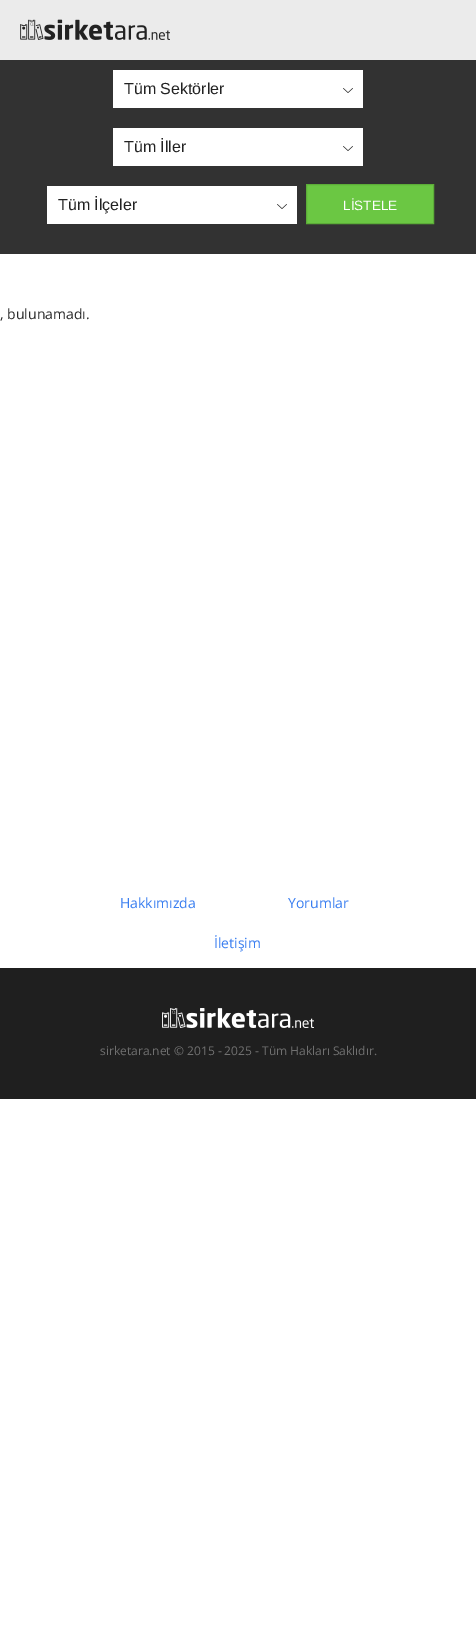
%!PS
<< /PageSize [476 1627] >> setpagedevice
/rgb { 3 { 255 div 3 1 roll } repeat setrgbcolor } def
/font { [ exch dup neg 0 0 3 -1 roll 0 0 ] selectfont } def
/picture { 5 dict begin { /h /w /y /x /name } { exch def } forall
  gsave x y translate w h scale
  w h 8 [w 0 0 h 0 0] name (r) file false 3 colorimage grestore end } def
0 1627 translate 1 -1 scale
4 setmiterlimit
255 255 255 rgb
0 0 476 1627 rectfill
235 235 235 rgb
0 0 476 60 rectfill
(img/1.rgb) 20 19 150 21 picture
50 50 50 rgb
0 60 476 194 rectfill
255 255 255 rgb
113 70 250 38 rectfill
(img/2.rgb) 343 88 10 5 picture
113 128 250 38 rectfill
(img/2.rgb) 343 146 10 5 picture
47 186 250 38 rectfill
(img/2.rgb) 277 204 10 5 picture
107 199 67 rgb
306.5 184.5 moveto 433.5 184.5 lineto 433.5 223.5 lineto 306.5 223.5 lineto closepath gsave fill grestore
92 173 56 rgb
stroke
31 31 31 rgb
0 968 476 131 rectfill
(img/3.rgb) 162 1008 152 20 picture
/LiberationSans-Regular 16 font
34 34 34 rgb
[
  [(Tüm Sektörler) 124 94]
  [(Tüm İller) 124 152]
  [(Tüm İlçeler) 58 210]
] { aload pop moveto show } forall
/LiberationSans-Regular 13.5 font
255 255 255 rgb
343 210 moveto (LİSTELE) show
/OpenSans-Regular 14 font
42 42 42 rgb
0 319 moveto (, bulunamadı.) show
57 126 241 rgb
[
  [(Hakkımızda) 120 908]
  [(Yorumlar) 288 908]
  [(İletişim) 214 948]
] { aload pop moveto show } forall
/OpenSans-Regular 12 font
112 112 112 rgb
100 1055 moveto (sirketara.net © 2015 - 2025 - Tüm Hakları Saklıdır.) show
showpage
